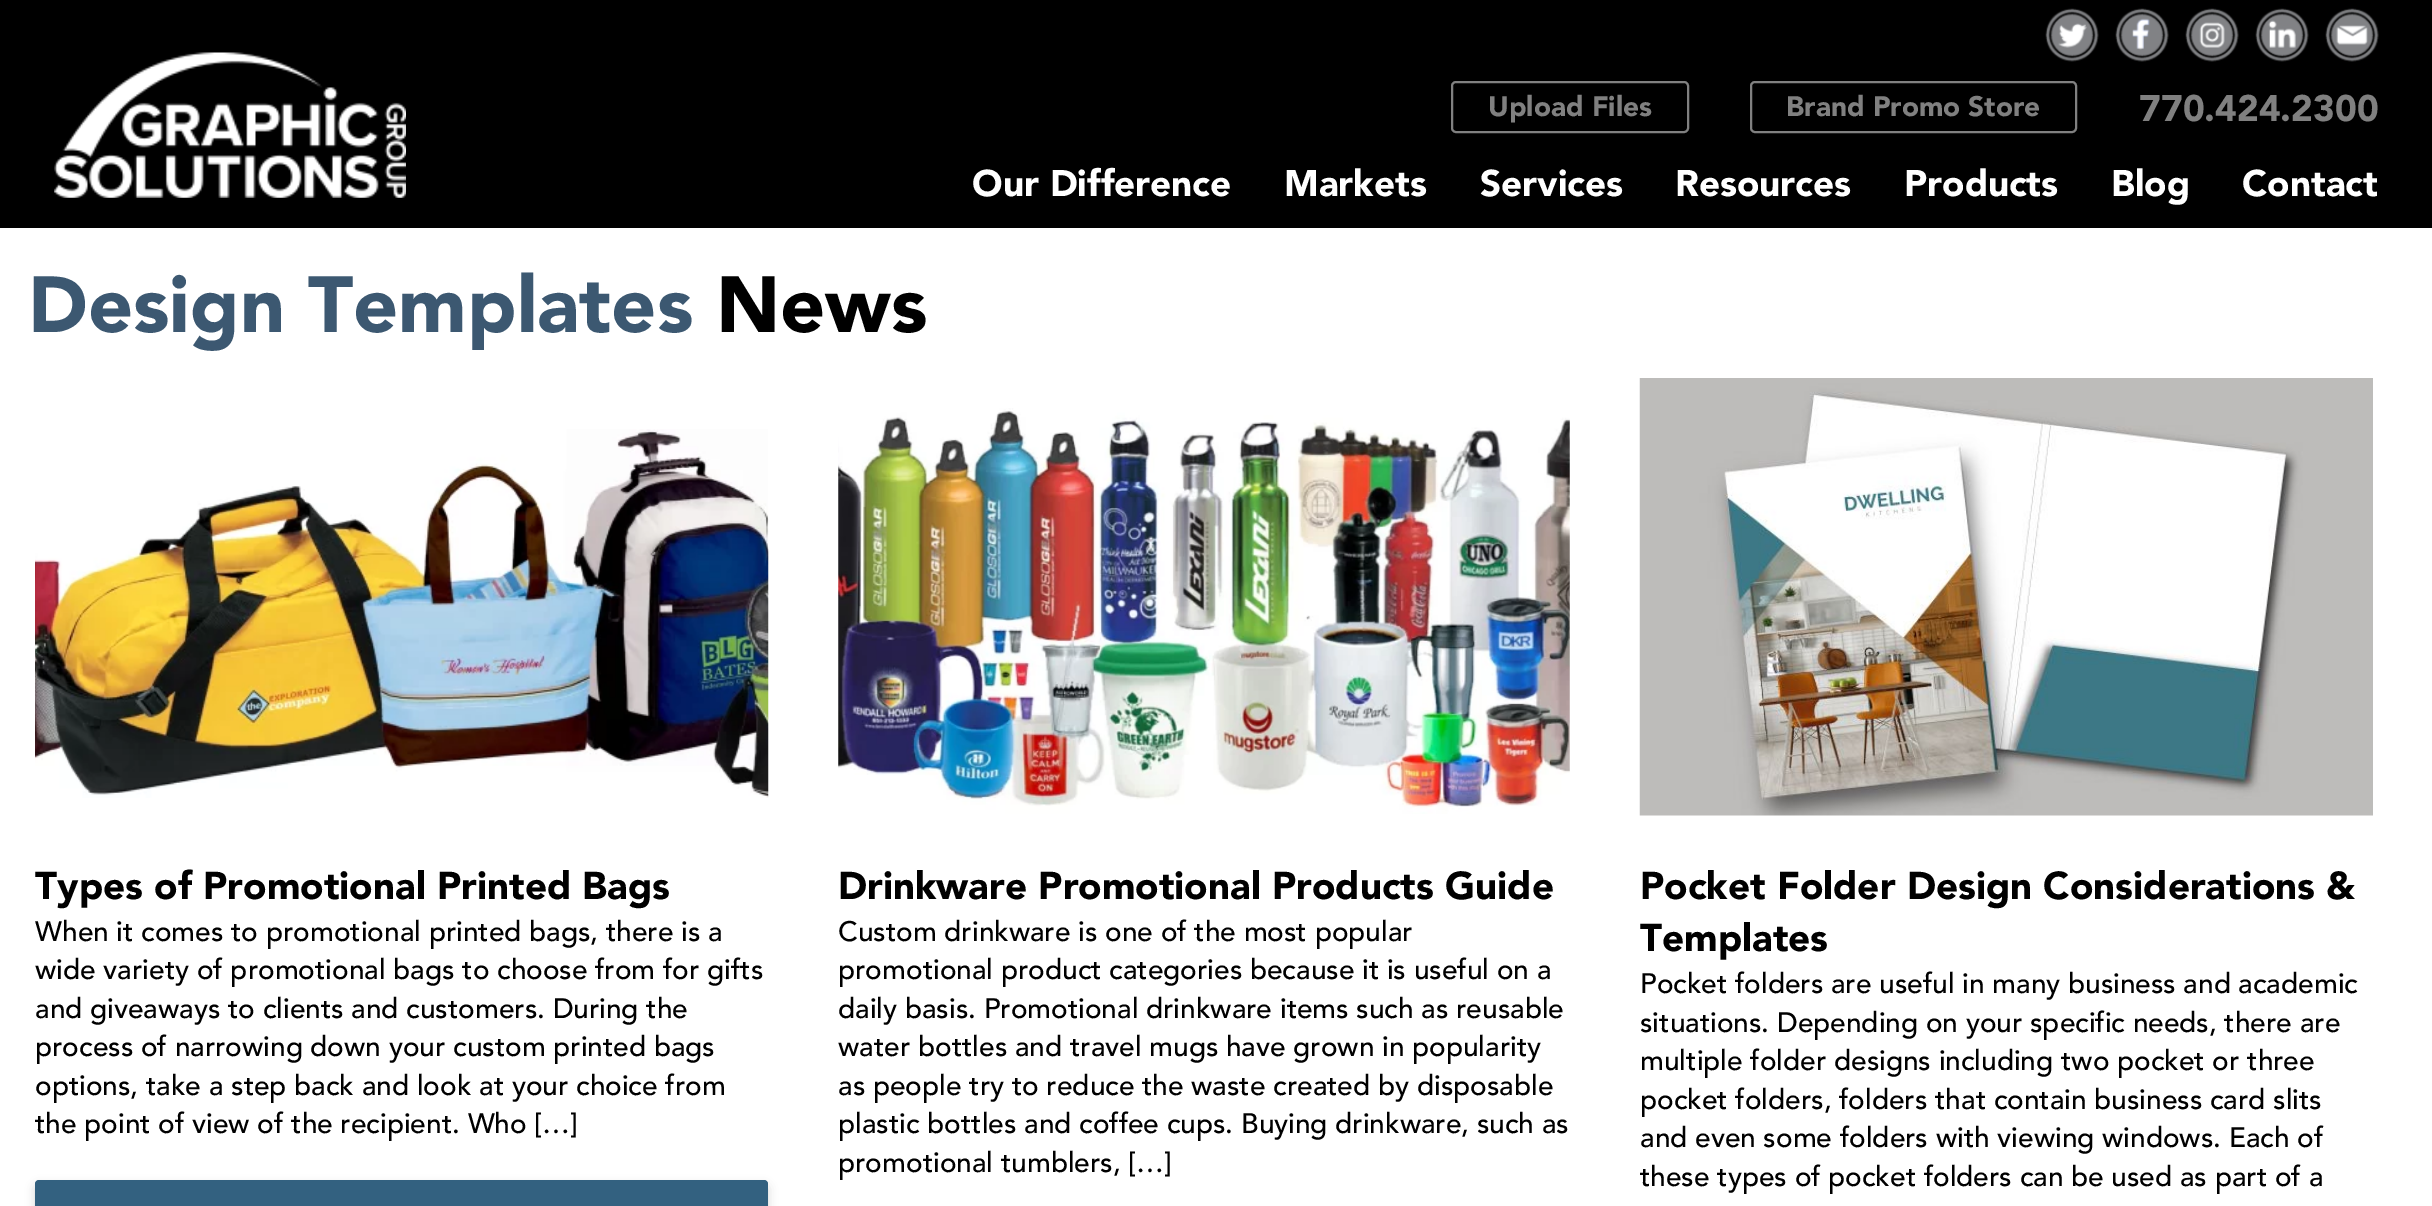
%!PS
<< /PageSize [2432 1206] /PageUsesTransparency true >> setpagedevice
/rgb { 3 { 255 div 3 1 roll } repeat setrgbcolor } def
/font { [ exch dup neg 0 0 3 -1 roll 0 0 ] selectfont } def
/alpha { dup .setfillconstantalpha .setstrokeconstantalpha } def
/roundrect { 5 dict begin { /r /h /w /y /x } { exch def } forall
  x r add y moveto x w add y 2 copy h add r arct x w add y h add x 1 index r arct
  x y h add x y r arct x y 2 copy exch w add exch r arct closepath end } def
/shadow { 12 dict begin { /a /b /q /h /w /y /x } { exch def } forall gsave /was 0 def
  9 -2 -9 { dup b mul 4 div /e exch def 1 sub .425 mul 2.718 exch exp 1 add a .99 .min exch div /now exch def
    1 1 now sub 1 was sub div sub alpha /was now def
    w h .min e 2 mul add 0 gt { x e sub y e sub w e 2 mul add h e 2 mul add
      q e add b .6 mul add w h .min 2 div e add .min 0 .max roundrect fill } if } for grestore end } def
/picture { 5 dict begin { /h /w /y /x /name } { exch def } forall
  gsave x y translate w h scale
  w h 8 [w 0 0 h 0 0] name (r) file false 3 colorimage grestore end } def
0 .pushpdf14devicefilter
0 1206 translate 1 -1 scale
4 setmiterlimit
255 255 255 rgb
0 0 2432 1206 rectfill
0 0 0 rgb
0 0 2432 228 rectfill
(img/1.rgb) 54 52 352 146 picture
(img/2.rgb) 2045 8 54 54 picture
(img/3.rgb) 2115 8 54 54 picture
(img/4.rgb) 2185 8 54 54 picture
(img/5.rgb) 2255 8 54 54 picture
(img/6.rgb) 2325 8 54 54 picture
128 128 128 rgb
2 setlinewidth
1452 82 236 50 4 roundrect stroke
1751 82 325 50 4 roundrect stroke
(img/7.rgb) 35 429 734 369 picture
0 0 0 rgb
35 1185 733 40 4 5 0.16 shadow
51 97 128 rgb
35 1180 733 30 4 roundrect fill
(img/8.rgb) 838 408 732 406 picture
(img/9.rgb) 1639 378 734 438 picture
/Avenir-Black 28 font
128 128 128 rgb
1488 116 moveto (Upload Files) show
1786 116 moveto (Brand Promo Store) show
/Avenir-Black 36.75 font
2139 121 moveto (770.424.2300) show
255 255 255 rgb
[
  [(Our Difference) 972 196]
  [(Markets) 1284 196]
  [(Services) 1480 196]
  [(Resources) 1675 196]
  [(Products) 1904 196]
  [(Blog) 2111 196]
  [(Contact) 2242 196]
] { aload pop moveto show } forall
/Avenir-Black 78.75 font
60 88 113 rgb
28 332 moveto (Design Templates) show
0 0 0 rgb
716 332 moveto (News) show
/Avenir-Black 38.5 font
35 899 moveto (Types of Promotional Printed Bags) show
/Avenir-Medium 28 font
[
  [(When it comes to promotional printed bags, there is a) 35 941]
  [(wide variety of promotional bags to choose from for gifts) 35 979]
  [(and giveaways to clients and customers. During the) 35 1018]
  [(process of narrowing down your custom printed bags) 35 1056]
  [(options, take a step back and look at your choice from) 35 1095]
  [(the point of view of the recipient. Who […]) 35 1133]
] { aload pop moveto show } forall
/Avenir-Black 38.5 font
838 899 moveto (Drinkware Promotional Products Guide) show
/Avenir-Medium 28 font
[
  [(Custom drinkware is one of the most popular) 838 941]
  [(promotional product categories because it is useful on a) 838 979]
  [(daily basis. Promotional drinkware items such as reusable) 838 1018]
  [(water bottles and travel mugs have grown in popularity) 838 1056]
  [(as people try to reduce the waste created by disposable) 838 1095]
  [(plastic bottles and coffee cups. Buying drinkware, such as) 838 1133]
  [(promotional tumblers, […]) 838 1172]
] { aload pop moveto show } forall
/Avenir-Black 38.5 font
1640 899 moveto (Pocket Folder Design Considerations &) show
1640 951 moveto (Templates) show
/Avenir-Medium 28 font
[
  [(Pocket folders are useful in many business and academic) 1640 993]
  [(situations. Depending on your specific needs, there are) 1640 1032]
  [(multiple folder designs including two pocket or three) 1640 1070]
  [(pocket folders, folders that contain business card slits) 1640 1109]
  [(and even some folders with viewing windows. Each of) 1640 1147]
  [(these types of pocket folders can be used as part of a) 1640 1186]
] { aload pop moveto show } forall
.poppdf14devicefilter showpage
